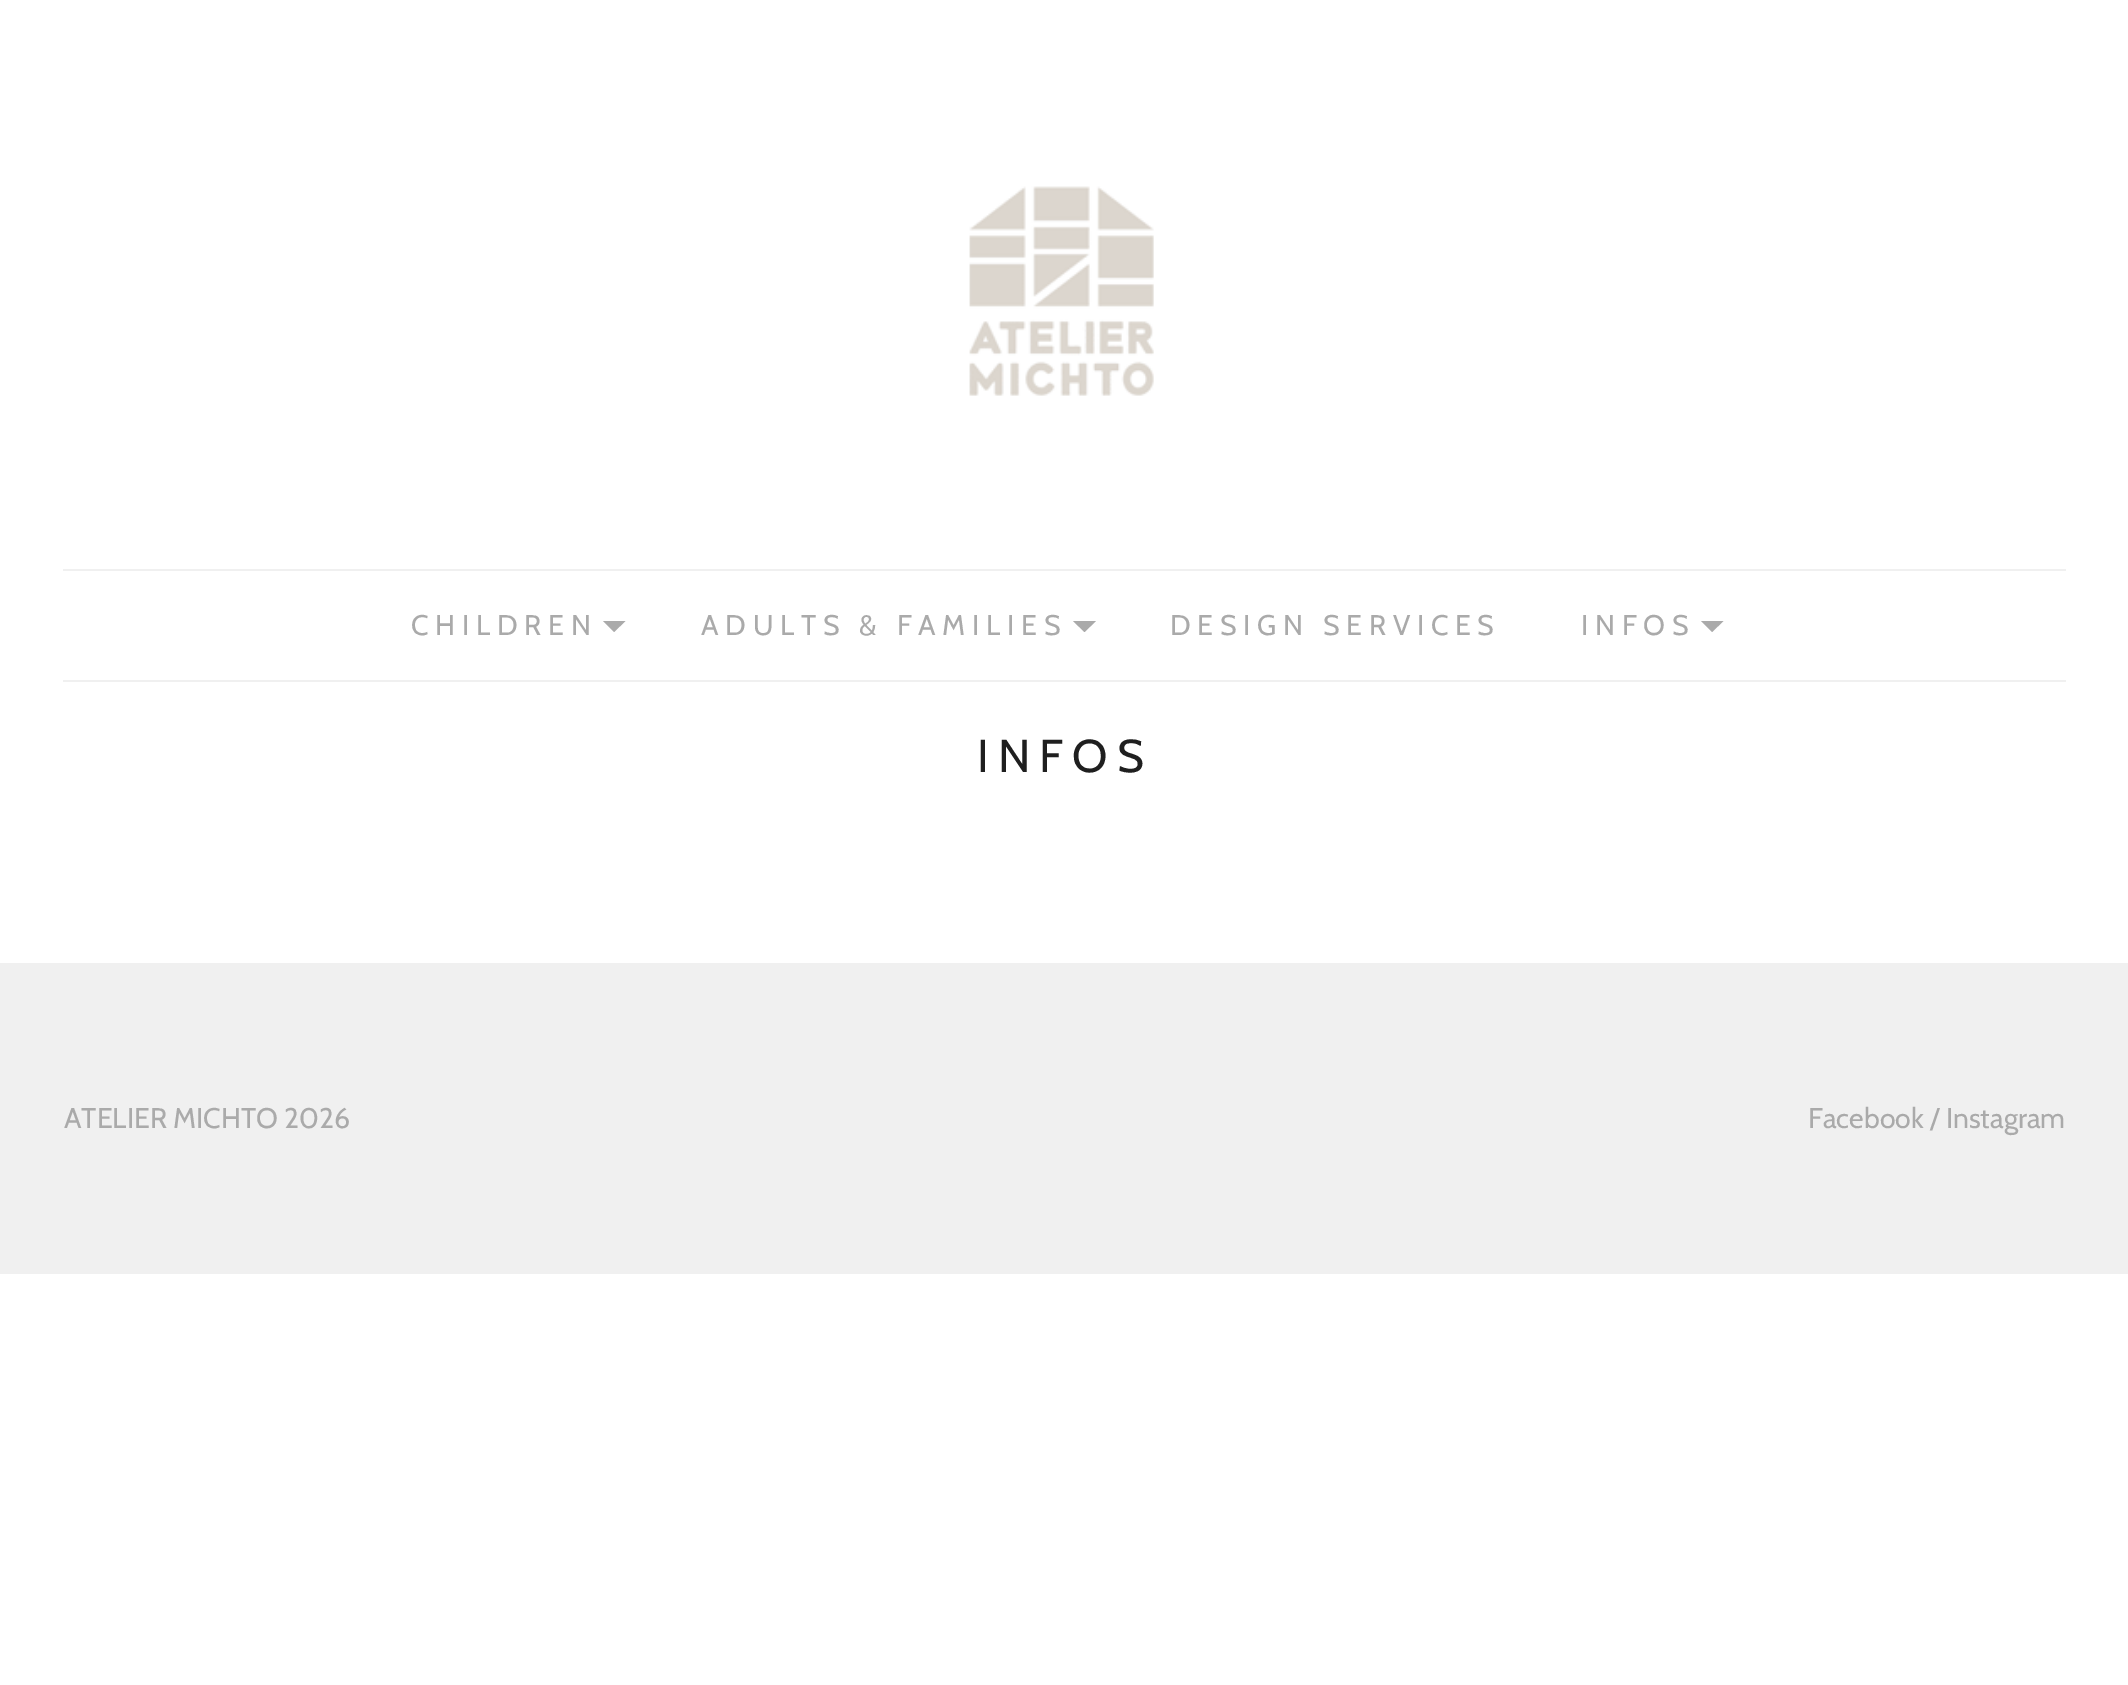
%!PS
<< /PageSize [2128 1685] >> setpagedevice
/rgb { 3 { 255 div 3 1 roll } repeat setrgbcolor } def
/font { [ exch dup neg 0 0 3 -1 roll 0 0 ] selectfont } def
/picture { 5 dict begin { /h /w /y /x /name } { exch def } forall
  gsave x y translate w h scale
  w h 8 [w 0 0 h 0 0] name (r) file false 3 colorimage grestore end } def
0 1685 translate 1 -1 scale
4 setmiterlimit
255 255 255 rgb
0 0 2128 1685 rectfill
(img/1.rgb) 969 186 185 210 picture
240 240 240 rgb
63 569 2003 2 rectfill
63 680 2003 2 rectfill
170 170 170 rgb
603 621 moveto 625.5 621 lineto 614 632 lineto closepath fill
1073 621 moveto 1096 621 lineto 1084.5 632 lineto closepath fill
1701 621 moveto 1723.5 621 lineto 1712 632 lineto closepath fill
240 240 240 rgb
0 963 2128 311 rectfill
/Cabin-Regular 28.4 font
170 170 170 rgb
411 635 moveto 6.75 0 (CHILDREN) ashow
701 635 moveto 6.75 0 (ADULTS & FAMILIES) ashow
1170 635 moveto 6.75 0 (DESIGN SERVICES) ashow
1581 635 moveto 6.75 0 (INFOS) ashow
/Cabin-Regular 46 font
31 31 31 rgb
977 772 moveto 9 0 (INFOS) ashow
/Cabin-Regular 28.4 font
170 170 170 rgb
64 1128 moveto (ATELIER MICHTO 2026) show
1808 1128 moveto (Facebook / Instagram) show
showpage
